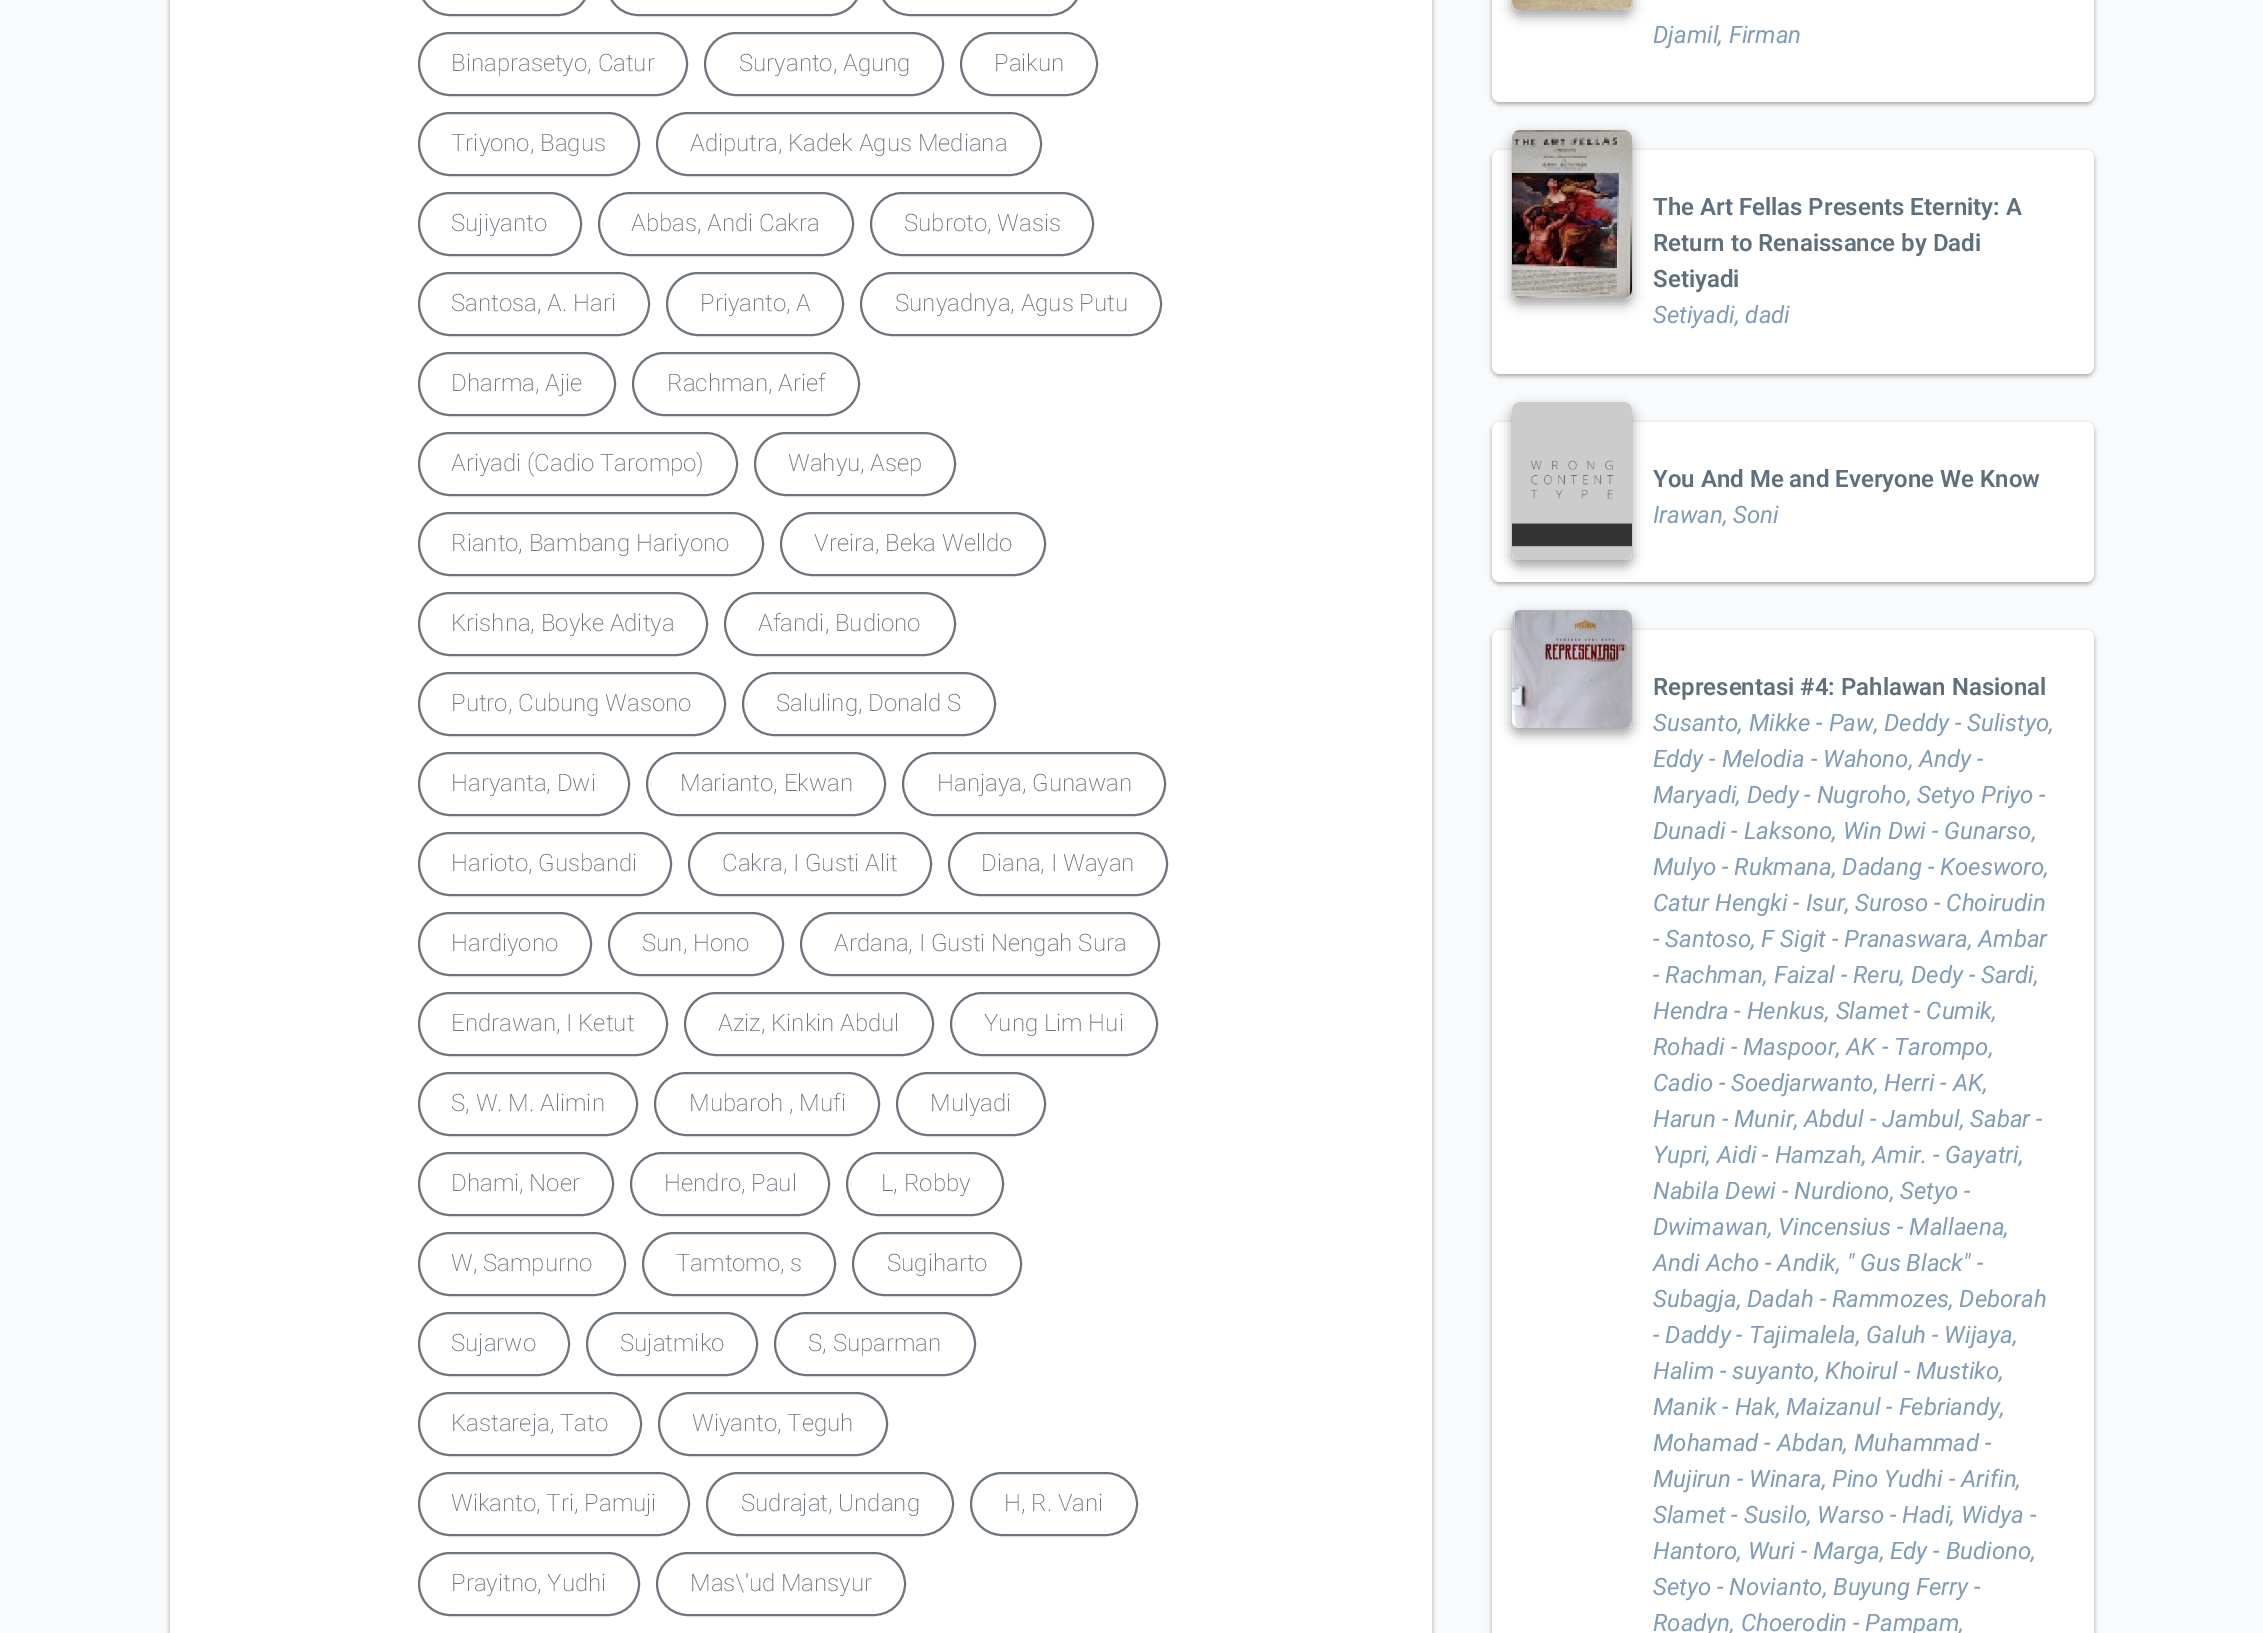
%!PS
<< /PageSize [2263 1633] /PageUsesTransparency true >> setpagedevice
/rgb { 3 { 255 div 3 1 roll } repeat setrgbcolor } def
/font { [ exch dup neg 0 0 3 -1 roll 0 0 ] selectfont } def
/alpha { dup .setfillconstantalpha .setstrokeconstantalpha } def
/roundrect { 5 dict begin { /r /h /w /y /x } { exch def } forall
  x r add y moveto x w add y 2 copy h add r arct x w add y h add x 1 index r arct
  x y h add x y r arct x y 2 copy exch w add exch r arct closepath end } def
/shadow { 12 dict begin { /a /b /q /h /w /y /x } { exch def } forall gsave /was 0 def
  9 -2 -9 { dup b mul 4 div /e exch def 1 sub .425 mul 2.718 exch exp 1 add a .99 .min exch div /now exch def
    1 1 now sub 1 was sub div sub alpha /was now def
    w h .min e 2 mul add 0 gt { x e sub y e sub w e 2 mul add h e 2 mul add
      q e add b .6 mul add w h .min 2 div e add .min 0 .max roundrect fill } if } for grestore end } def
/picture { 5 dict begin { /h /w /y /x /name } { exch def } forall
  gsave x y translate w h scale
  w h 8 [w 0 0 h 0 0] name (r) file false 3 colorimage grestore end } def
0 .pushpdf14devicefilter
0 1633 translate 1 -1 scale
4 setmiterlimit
248 250 252 rgb
0 0 2263 1633 rectfill
0 0 0 rgb
170 -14 1262 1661 8 2 0.24 shadow
170 -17 1262 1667 8 3 0.12 shadow
255 255 255 rgb
170 0 1262 1633 rectfill
108 117 125 rgb
2 setlinewidth
419 -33 170 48 31 roundrect stroke
607 -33 254 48 31 roundrect stroke
879 -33 202 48 31 roundrect stroke
419 33 268 62 31 roundrect stroke
705 33 238 62 31 roundrect stroke
961 33 136 62 31 roundrect stroke
419 113 220 62 31 roundrect stroke
657 113 384 62 31 roundrect stroke
419 193 162 62 31 roundrect stroke
599 193 254 62 31 roundrect stroke
871 193 222 62 31 roundrect stroke
419 273 230 62 31 roundrect stroke
667 273 176 62 31 roundrect stroke
861 273 300 62 31 roundrect stroke
419 353 196 62 31 roundrect stroke
633 353 226 62 31 roundrect stroke
419 433 318 62 31 roundrect stroke
755 433 200 62 31 roundrect stroke
419 513 344 62 31 roundrect stroke
781 513 264 62 31 roundrect stroke
419 593 288 62 31 roundrect stroke
725 593 230 62 31 roundrect stroke
419 673 306 62 31 roundrect stroke
743 673 252 62 31 roundrect stroke
419 753 210 62 31 roundrect stroke
647 753 238 62 31 roundrect stroke
903 753 262 62 31 roundrect stroke
419 833 252 62 31 roundrect stroke
689 833 242 62 31 roundrect stroke
949 833 218 62 31 roundrect stroke
419 913 172 62 31 roundrect stroke
609 913 174 62 31 roundrect stroke
801 913 358 62 31 roundrect stroke
419 993 248 62 31 roundrect stroke
685 993 248 62 31 roundrect stroke
951 993 206 62 31 roundrect stroke
419 1073 218 62 31 roundrect stroke
655 1073 224 62 31 roundrect stroke
897 1073 148 62 31 roundrect stroke
419 1153 194 62 31 roundrect stroke
631 1153 198 62 31 roundrect stroke
847 1153 156 62 31 roundrect stroke
419 1233 206 62 31 roundrect stroke
643 1233 192 62 31 roundrect stroke
853 1233 168 62 31 roundrect stroke
419 1313 150 62 31 roundrect stroke
587 1313 170 62 31 roundrect stroke
775 1313 200 62 31 roundrect stroke
419 1393 222 62 31 roundrect stroke
659 1393 228 62 31 roundrect stroke
419 1473 270 62 31 roundrect stroke
707 1473 246 62 31 roundrect stroke
971 1473 166 62 31 roundrect stroke
419 1553 220 62 31 roundrect stroke
657 1553 248 62 31 roundrect stroke
0 0 0 rgb
1492 -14 602 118 8 2 0.24 shadow
1492 -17 602 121 8 3 0.12 shadow
255 255 255 rgb
1492 -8 602 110 8 roundrect fill
0 0 0 rgb
1512 -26 120 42 8 6 0.23 shadow
1512 -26 120 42 8 6 0.16 shadow
(img/1.rgb) 1512 0 120 10 picture
1492 152 602 224 8 2 0.24 shadow
1492 152 602 224 8 3 0.12 shadow
255 255 255 rgb
1492 150 602 224 8 roundrect fill
0 0 0 rgb
1512 136 120 168 8 6 0.23 shadow
1512 136 120 168 8 6 0.16 shadow
(img/2.rgb) 1512 130 120 168 picture
1492 424 602 160 8 2 0.24 shadow
1492 424 602 160 8 3 0.12 shadow
255 255 255 rgb
1492 422 602 160 8 roundrect fill
0 0 0 rgb
1512 408 120 158 8 6 0.23 shadow
1512 408 120 158 8 6 0.16 shadow
(img/3.rgb) 1512 402 120 158 picture
1492 632 602 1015 8 2 0.24 shadow
1492 632 602 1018 8 3 0.12 shadow
255 255 255 rgb
1492 630 602 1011 8 roundrect fill
0 0 0 rgb
1512 616 120 118 8 6 0.23 shadow
1512 616 120 118 8 6 0.16 shadow
(img/4.rgb) 1512 610 120 118 picture
/Roboto-ExtraLight 24 font
108 117 125 rgb
[
  [(Binaprasetyo, Catur) 451 71]
  [(Suryanto, Agung) 739 71]
  [(Paikun) 994 71]
  [(Triyono, Bagus) 451 151]
  [(Adiputra, Kadek Agus Mediana) 690 151]
  [(Sujiyanto) 451 231]
  [(Abbas, Andi Cakra) 631 231]
  [(Subroto, Wasis) 904 231]
  [(Santosa, A. Hari) 451 311]
  [(Priyanto, A) 700 311]
  [(Sunyadnya, Agus Putu) 895 311]
  [(Dharma, Ajie) 451 391]
  [(Rachman, Arief) 667 391]
  [(Ariyadi \(Cadio Tarompo\)) 451 471]
  [(Wahyu, Asep) 788 471]
  [(Rianto, Bambang Hariyono) 451 551]
  [(Vreira, Beka Welldo) 814 551]
  [(Krishna, Boyke Aditya) 451 631]
  [(Afandi, Budiono) 758 631]
  [(Putro, Cubung Wasono) 451 711]
  [(Saluling, Donald S) 776 711]
  [(Haryanta, Dwi) 451 791]
  [(Marianto, Ekwan) 680 791]
  [(Hanjaya, Gunawan) 937 791]
  [(Harioto, Gusbandi) 451 871]
  [(Cakra, I Gusti Alit) 722 871]
  [(Diana, I Wayan) 981 871]
  [(Hardiyono) 451 951]
  [(Sun, Hono) 642 951]
  [(Ardana, I Gusti Nengah Sura) 834 951]
  [(Endrawan, I Ketut) 451 1031]
  [(Aziz, Kinkin Abdul) 718 1031]
  [(Yung Lim Hui) 984 1031]
  [(S, W. M. Alimin) 451 1111]
  [(Mubaroh , Mufi) 689 1111]
  [(Mulyadi) 930 1111]
  [(Dhami, Noer) 451 1191]
  [(Hendro, Paul) 664 1191]
  [(L, Robby) 881 1191]
  [(W, Sampurno) 451 1271]
  [(Tamtomo, s) 676 1271]
  [(Sugiharto) 887 1271]
  [(Sujarwo) 451 1351]
  [(Sujatmiko) 620 1351]
  [(S, Suparman) 808 1351]
  [(Kastareja, Tato) 451 1431]
  [(Wiyanto, Teguh) 692 1431]
  [(Wikanto, Tri, Pamuji) 451 1511]
  [(Sudrajat, Undang) 741 1511]
  [(H, R. Vani) 1004 1511]
  [(Prayitno, Yudhi) 451 1591]
  [(Mas\\'ud Mansyur) 690 1591]
] { aload pop moveto show } forall
/Roboto-Italic 24 font
131 156 181 rgb
1653 43 moveto (Djamil, Firman) show
/Roboto-SemiBold 24 font
96 111 123 rgb
[
  [(The Art Fellas Presents Eternity: A) 1653 215]
  [(Return to Renaissance by Dadi) 1653 251]
  [(Setiyadi) 1653 287]
] { aload pop moveto show } forall
/Roboto-Italic 24 font
131 156 181 rgb
1653 323 moveto (Setiyadi, dadi) show
/Roboto-SemiBold 24 font
96 111 123 rgb
1653 487 moveto (You And Me and Everyone We Know) show
/Roboto-Italic 24 font
131 156 181 rgb
1653 523 moveto (Irawan, Soni) show
/Roboto-SemiBold 24 font
96 111 123 rgb
1653 695 moveto (Representasi #4: Pahlawan Nasional) show
/Roboto-Italic 24 font
131 156 181 rgb
[
  [(Susanto, Mikke - Paw, Deddy - Sulistyo,) 1653 731]
  [(Eddy - Melodia - Wahono, Andy -) 1653 767]
  [(Maryadi, Dedy - Nugroho, Setyo Priyo -) 1653 803]
  [(Dunadi - Laksono, Win Dwi - Gunarso,) 1653 839]
  [(Mulyo - Rukmana, Dadang - Koesworo,) 1653 875]
  [(Catur Hengki - Isur, Suroso - Choirudin) 1653 911]
  [(- Santoso, F Sigit - Pranaswara, Ambar) 1653 947]
  [(- Rachman, Faizal - Reru, Dedy - Sardi,) 1653 983]
  [(Hendra - Henkus, Slamet - Cumik,) 1653 1019]
  [(Rohadi - Maspoor, AK - Tarompo,) 1653 1055]
  [(Cadio - Soedjarwanto, Herri - AK,) 1653 1091]
  [(Harun - Munir, Abdul - Jambul, Sabar -) 1653 1127]
  [(Yupri, Aidi - Hamzah, Amir. - Gayatri,) 1653 1163]
  [(Nabila Dewi - Nurdiono, Setyo -) 1653 1199]
  [(Dwimawan, Vincensius - Mallaena,) 1653 1235]
  [(Andi Acho - Andik, " Gus Black" -) 1653 1271]
  [(Subagja, Dadah - Rammozes, Deborah) 1653 1307]
  [(- Daddy - Tajimalela, Galuh - Wijaya,) 1653 1343]
  [(Halim - suyanto, Khoirul - Mustiko,) 1653 1379]
  [(Manik - Hak, Maizanul - Febriandy,) 1653 1415]
  [(Mohamad - Abdan, Muhammad -) 1653 1451]
  [(Mujirun - Winara, Pino Yudhi - Arifin,) 1653 1487]
  [(Slamet - Susilo, Warso - Hadi, Widya -) 1653 1523]
  [(Hantoro, Wuri - Marga, Edy - Budiono,) 1653 1559]
  [(Setyo - Novianto, Buyung Ferry -) 1653 1595]
  [(Roadyn, Choerodin - Pampam,) 1653 1631]
] { aload pop moveto show } forall
.poppdf14devicefilter showpage
